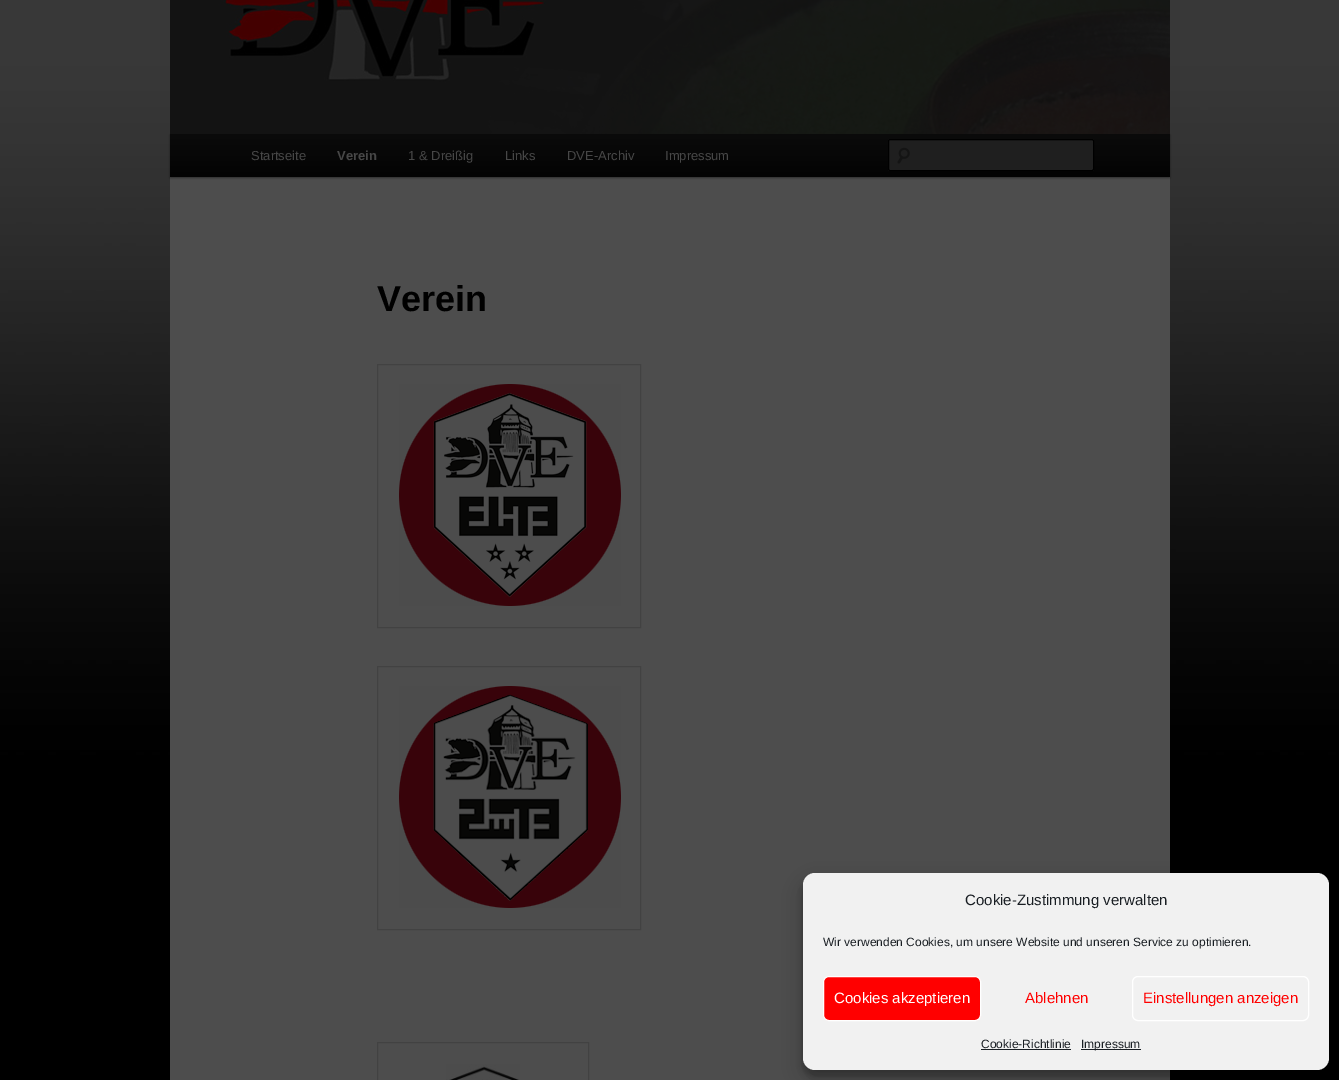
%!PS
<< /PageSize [1339 1080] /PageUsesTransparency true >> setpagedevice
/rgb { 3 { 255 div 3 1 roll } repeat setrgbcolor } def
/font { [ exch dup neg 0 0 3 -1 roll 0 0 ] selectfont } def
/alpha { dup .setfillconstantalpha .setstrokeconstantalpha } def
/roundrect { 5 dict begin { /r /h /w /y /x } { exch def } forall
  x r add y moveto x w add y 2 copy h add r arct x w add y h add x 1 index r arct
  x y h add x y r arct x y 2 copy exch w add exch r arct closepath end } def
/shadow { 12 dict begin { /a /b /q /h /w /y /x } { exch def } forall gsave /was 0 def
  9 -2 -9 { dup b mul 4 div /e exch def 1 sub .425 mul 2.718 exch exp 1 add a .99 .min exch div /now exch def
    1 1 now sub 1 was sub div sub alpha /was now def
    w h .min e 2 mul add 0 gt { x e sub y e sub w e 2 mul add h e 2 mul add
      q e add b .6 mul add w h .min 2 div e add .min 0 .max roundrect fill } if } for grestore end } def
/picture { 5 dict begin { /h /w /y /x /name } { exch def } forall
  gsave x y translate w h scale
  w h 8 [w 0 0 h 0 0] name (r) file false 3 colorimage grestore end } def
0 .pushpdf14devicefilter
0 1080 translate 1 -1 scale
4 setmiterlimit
255 255 255 rgb
0 0 1339 1080 rectfill
(img/1.rgb) 0 0 1339 1080 picture
77 77 77 rgb
170 177 1000 903 rectfill
0 0 0 rgb
170 135 1000 43 0 1 0.4 shadow
(img/2.rgb) 170 0 1000 134 picture
gsave 170 134 moveto 1170 134 lineto 1170 177 lineto 170 177 lineto closepath clip newpath
<< /ShadingType 2 /ColorSpace /DeviceRGB /Coords [670 134 670 177] /Extend [true true] /Function << /FunctionType 2 /Domain [0 1] /C0 [0.043 0.043 0.043] /C1 [0.012 0.012 0.012] /N 1 >> >> shfill grestore
31 31 31 rgb
888 139 206 32 2 roundrect fill
(img/3.rgb) 897 147 13 17 picture
28 28 28 rgb
890 141 moveto 1093 141 lineto 1093 142 lineto 1093 140 lineto 1092 140 lineto 890 140 lineto 889 140 889 141 889 142 curveto 889 141 889 141 890 141 curveto closepath fill
0 0 0 rgb
888.5 139.5 205 31 1.5 roundrect stroke
66 66 66 rgb
377.5 364.5 263 263 rectstroke
(img/4.rgb) 399 384 222 222 picture
377.5 666.5 263 263 rectstroke
(img/5.rgb) 399 686 222 222 picture
377.5 1042.5 211 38 rectstroke
(img/6.rgb) 446 1064 74 16 picture
0 0 0 rgb
803 879 526 197 12 3 0.23 shadow
803 883 526 197 12 10 0.19 shadow
241 241 241 rgb
803 873 526 197 12 roundrect fill
255 0 0 rgb
823.5 976.5 157 44 5.5 roundrect gsave fill grestore
255 255 255 rgb
stroke
1132.5 976.5 176 44 5.5 roundrect stroke
25 30 35 rgb
981 1049 90 1 rectfill
1081 1049 60 1 rectfill
/LiberationSans-Regular 13 font
71 71 71 rgb
251 160 moveto (Startseite) show
/LiberationSans-Bold 13 font
337 160 moveto (Verein) show
/LiberationSans-Regular 13 font
[
  [(1 & Dreißig) 408 160]
  [(Links) 505 160]
  [(DVE-Archiv) 567 160]
  [(Impressum) 665 160]
] { aload pop moveto show } forall
/LiberationSans-Bold 36 font
0 0 0 rgb
377 311 moveto (Verein) show
/LiberationSans-Regular 15 font
25 30 35 rgb
965 905 moveto (Cookie-Zustimmung verwalten) show
/LiberationSans-Regular 12 font
823 946 moveto (Wir verwenden Cookies, um unsere Website und unseren Service zu optimieren.) show
/LiberationSans-Regular 15 font
255 255 255 rgb
834 1003 moveto (Cookies akzeptieren) show
255 0 0 rgb
1025 1003 moveto (Ablehnen) show
1143 1003 moveto (Einstellungen anzeigen) show
/LiberationSans-Regular 12 font
25 30 35 rgb
981 1048 moveto (Cookie-Richtlinie) show
1081 1048 moveto (Impressum) show
.poppdf14devicefilter showpage
